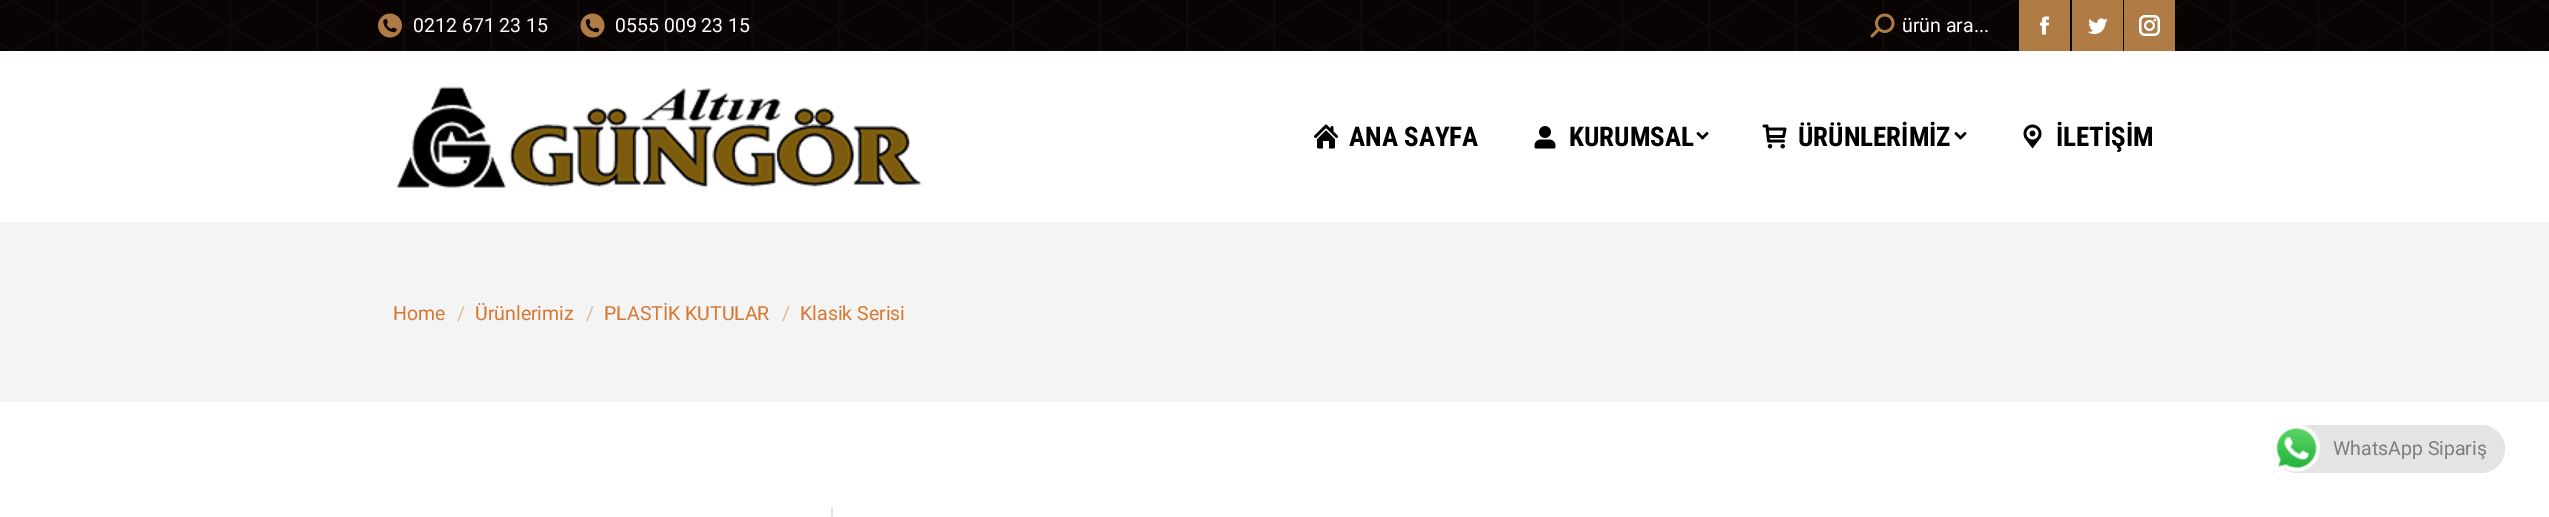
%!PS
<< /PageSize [2549 517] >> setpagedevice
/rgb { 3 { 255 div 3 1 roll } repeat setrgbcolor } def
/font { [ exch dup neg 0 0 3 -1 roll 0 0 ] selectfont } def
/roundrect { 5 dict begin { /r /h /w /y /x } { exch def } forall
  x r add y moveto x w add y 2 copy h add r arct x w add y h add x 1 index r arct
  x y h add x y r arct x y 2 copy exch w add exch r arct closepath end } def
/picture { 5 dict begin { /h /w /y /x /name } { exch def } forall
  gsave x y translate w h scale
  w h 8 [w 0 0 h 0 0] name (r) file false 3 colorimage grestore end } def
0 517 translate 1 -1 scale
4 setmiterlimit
255 255 255 rgb
0 0 2549 517 rectfill
10 3 4 rgb
0 0 2549 51 rectfill
(img/1.rgb) 0 0 2549 51 picture
(img/2.rgb) 378 13 24 25 picture
(img/3.rgb) 580 13 25 25 picture
(img/4.rgb) 1870 13 25 25 picture
176 124 70 rgb
2019 0 51 51 rectfill
(img/5.rgb) 2039 16 11 19 picture
2072 0 51 51 rectfill
(img/6.rgb) 2088 18 20 17 picture
2124 0 51 51 rectfill
(img/7.rgb) 2139 15 21 21 picture
(img/8.rgb) 396 86 526 102 picture
(img/9.rgb) 1314 124 24 25 picture
(img/10.rgb) 1534 126 22 23 picture
(img/11.rgb) 1696 132 13 8 picture
(img/12.rgb) 1762 124 25 25 picture
(img/11.rgb) 1954 132 13 8 picture
(img/13.rgb) 2023 124 19 25 picture
244 244 244 rgb
0 222 2549 180 rectfill
230 230 230 rgb
831 507 2 10 rectfill
228 228 228 rgb
2273 425 232 48 24 roundrect fill
(img/14.rgb) 2272 425 49 48 picture
/Roboto-Regular 19.5 font
255 255 255 rgb
[
  [(0212 671 23 15) 413 32]
  [(0555 009 23 15) 615 32]
  [(ürün ara...) 1902 32]
] { aload pop moveto show } forall
/RobotoCondensed-Bold 27 font
0 0 0 rgb
[
  [(ANA SAYFA) 1349 146]
  [(KURUMSAL) 1569 146]
  [(ÜRÜNLERİMİZ) 1798 146]
  [(İLETİŞİM) 2056 146]
] { aload pop moveto show } forall
/Roboto-Regular 19.5 font
214 120 49 rgb
393 320 moveto (Home) show
229 182 147 rgb
457 320 moveto (/) show
214 120 49 rgb
475 320 moveto (Ürünlerimiz) show
229 182 147 rgb
586 320 moveto (/) show
214 120 49 rgb
604 320 moveto (PLASTİK KUTULAR) show
229 182 147 rgb
782 320 moveto (/) show
214 120 49 rgb
800 320 moveto (Klasik Serisi) show
127 125 125 rgb
2333 455 moveto (WhatsApp Sipariş) show
showpage
